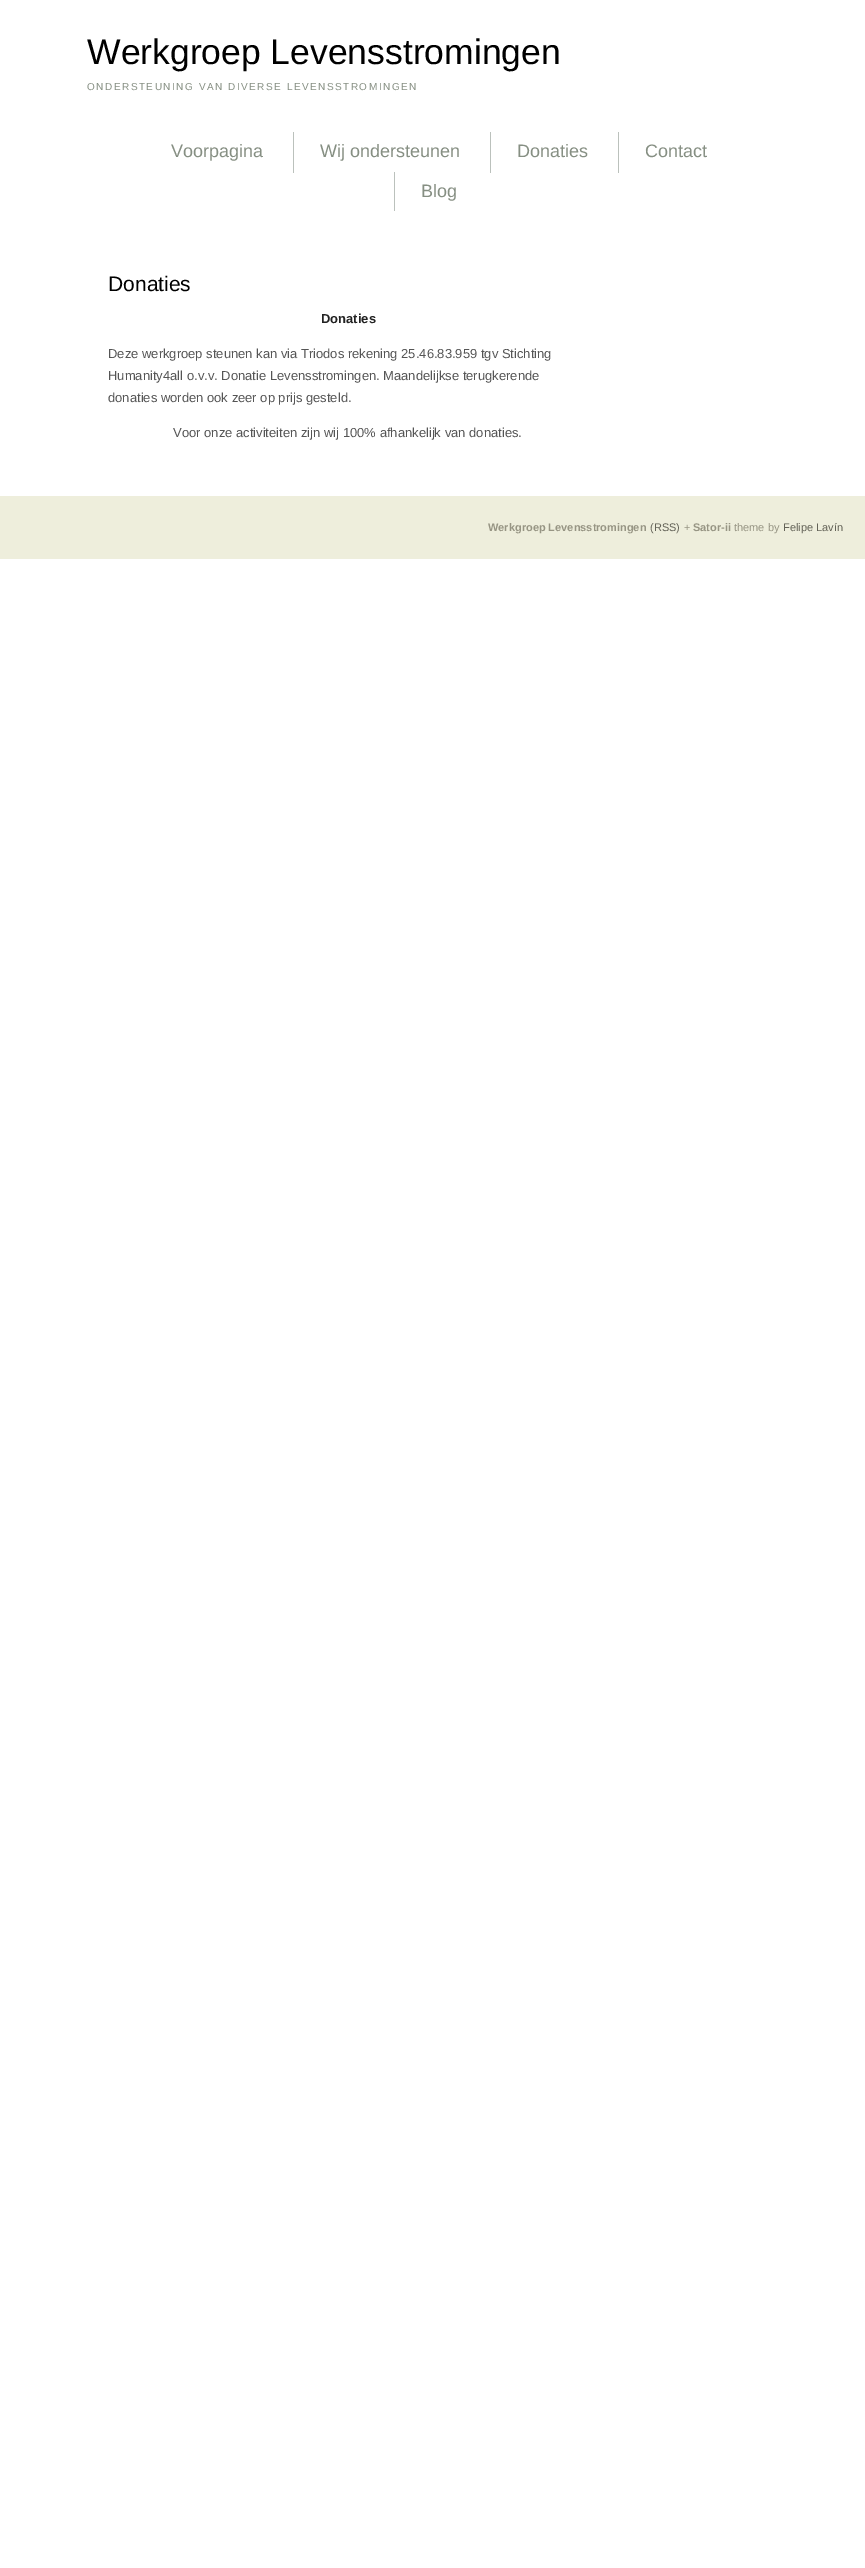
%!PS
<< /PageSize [865 2568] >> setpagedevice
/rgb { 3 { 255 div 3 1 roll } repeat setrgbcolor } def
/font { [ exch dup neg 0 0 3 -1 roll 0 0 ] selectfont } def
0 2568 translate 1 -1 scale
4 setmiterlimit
255 255 255 rgb
0 0 865 2568 rectfill
[
  [293 132 1 41 187 193 188]
  [490 132 1 41 187 193 188]
  [618 132 1 41 187 193 188]
  [394 172 1 39 187 193 188]
  [0 496 865 63 238 238 220]
] { aload pop rgb rectfill } forall
/LiberationSans-Regular 35.5 font
0 0 0 rgb
87 64 moveto (Werkgroep Levensstromingen) show
/LiberationSans-Regular 10 font
134 143 131 rgb
87 90 moveto 1.5 0 (ONDERSTEUNING VAN DIVERSE LEVENSSTROMINGEN) ashow
/LiberationSans-Regular 18 font
[
  [(Voorpagina) 171 157]
  [(Wij ondersteunen) 320 157]
  [(Donaties) 517 157]
  [(Contact) 645 157]
  [(Blog) 421 197]
] { aload pop moveto show } forall
/LiberationSans-Regular 21 font
0 0 0 rgb
108 291 moveto (Donaties) show
/LiberationSans-Bold 13 font
34 34 34 rgb
321 323 moveto (Donaties) show
/LiberationSans-Regular 13 font
85 85 85 rgb
[
  [(Deze werkgroep steunen kan via Triodos rekening 25.46.83.959 tgv Stichting) 108 358]
  [(Humanity4all o.v.v. Donatie Levensstromingen. Maandelijkse terugkerende) 108 380]
  [(donaties worden ook zeer op prijs gesteld.) 108 402]
  [(Voor onze activiteiten zijn wij 100% afhankelijk van donaties.) 173 437]
] { aload pop moveto show } forall
/LiberationSans-Bold 11 font
151 149 132 rgb
488 531 moveto (Werkgroep Levensstromingen) show
/LiberationSans-Regular 11 font
99 98 87 rgb
650 531 moveto (\(RSS\)) show
151 149 132 rgb
684 531 moveto (+) show
/LiberationSans-Bold 11 font
693 531 moveto (Sator-ii) show
/LiberationSans-Regular 11 font
734 531 moveto (theme by) show
99 98 87 rgb
783 531 moveto (Felipe Lavín) show
showpage
